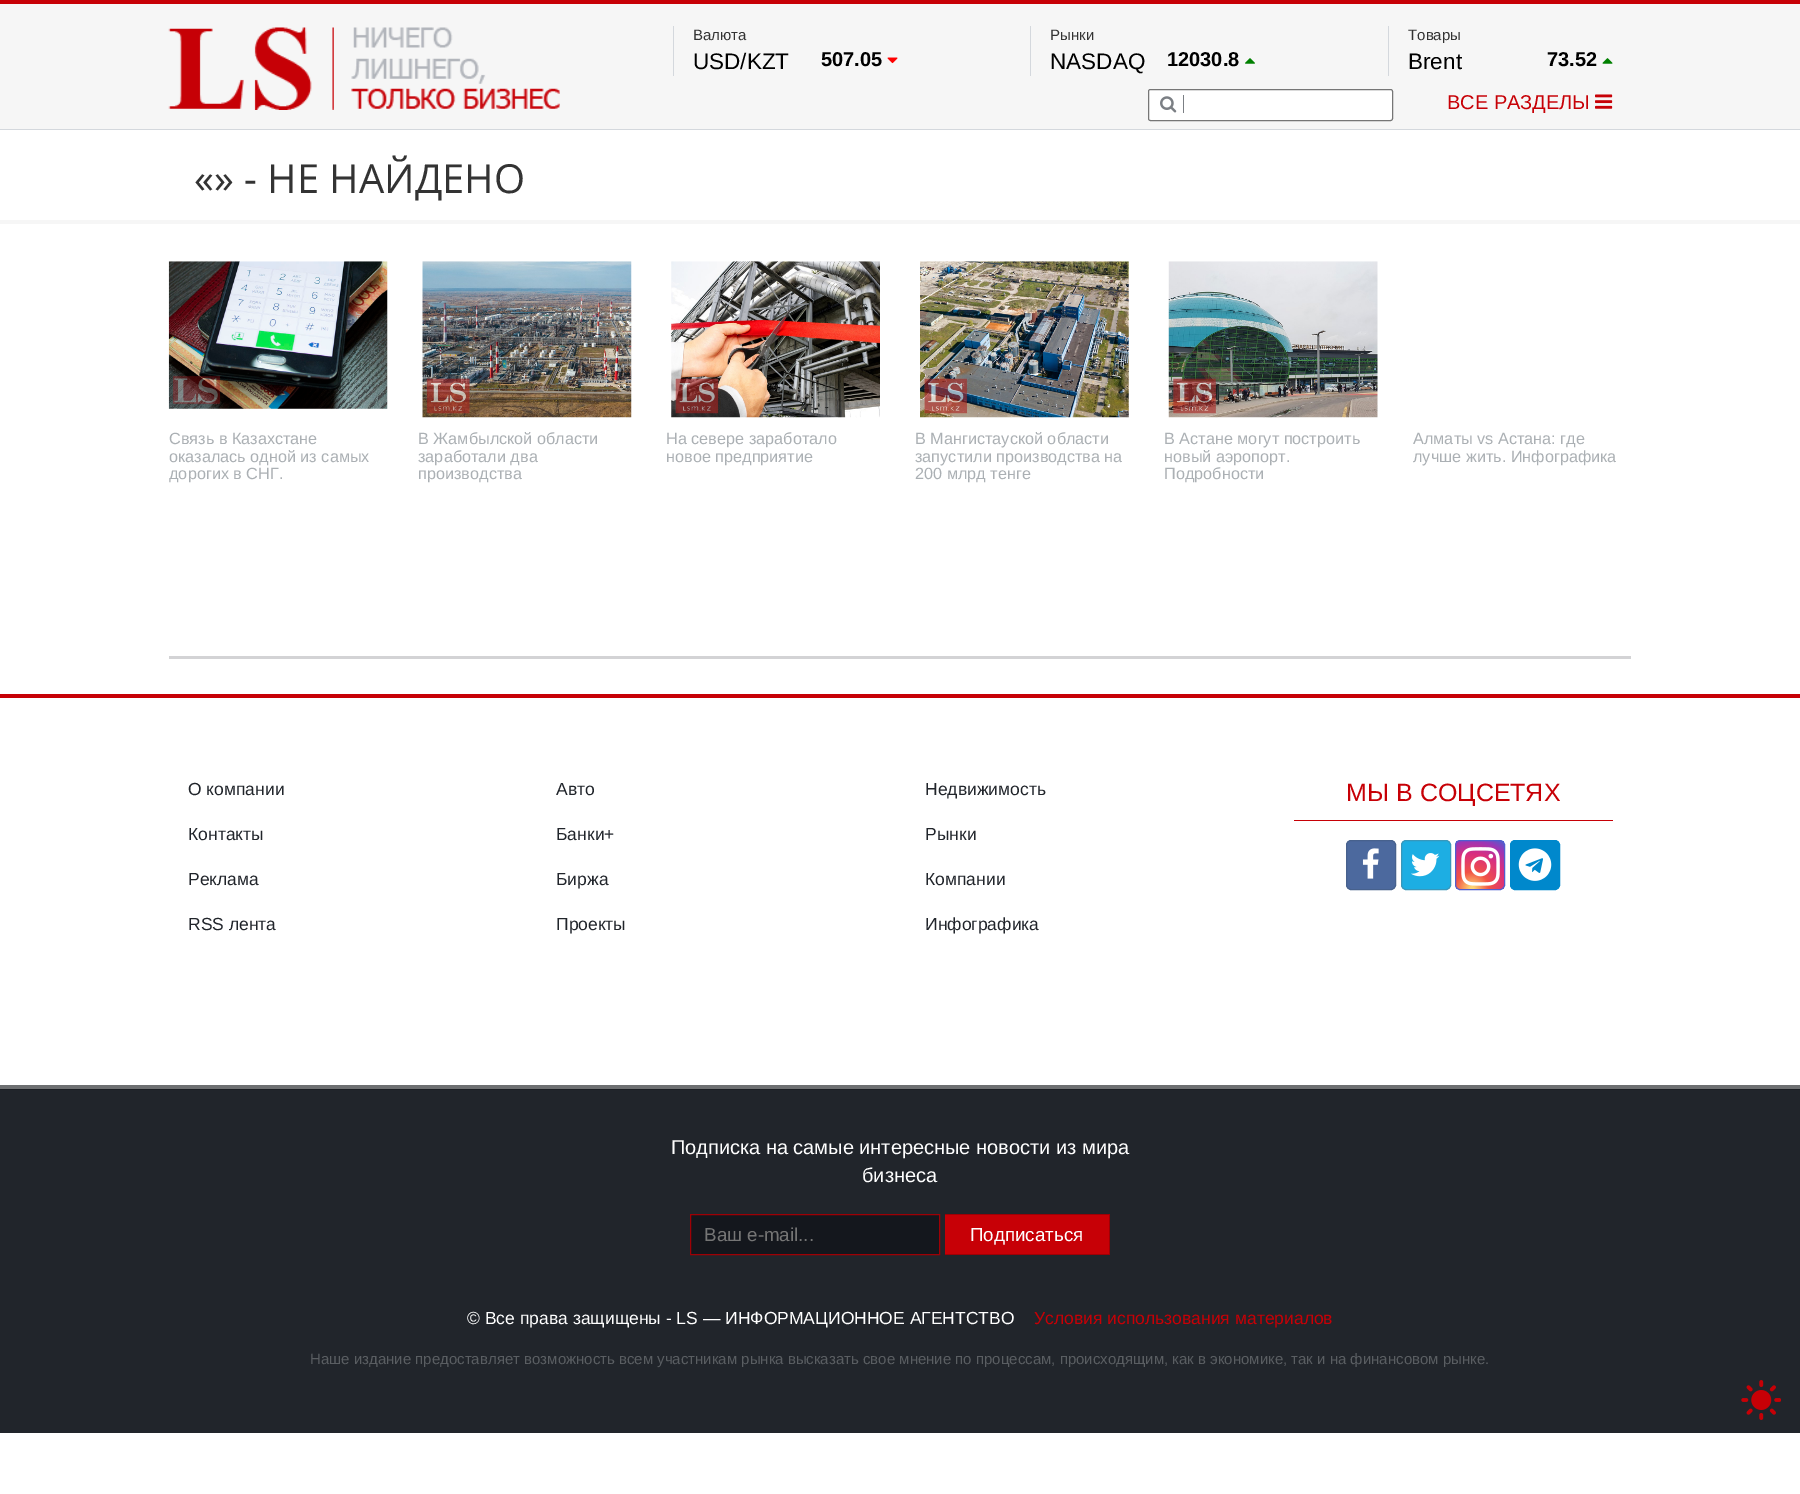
%!PS
<< /PageSize [1800 1494] >> setpagedevice
/rgb { 3 { 255 div 3 1 roll } repeat setrgbcolor } def
/font { [ exch dup neg 0 0 3 -1 roll 0 0 ] selectfont } def
/roundrect { 5 dict begin { /r /h /w /y /x } { exch def } forall
  x r add y moveto x w add y 2 copy h add r arct x w add y h add x 1 index r arct
  x y h add x y r arct x y 2 copy exch w add exch r arct closepath end } def
/picture { 5 dict begin { /h /w /y /x /name } { exch def } forall
  gsave x y translate w h scale
  w h 8 [w 0 0 h 0 0] name (r) file false 3 colorimage grestore end } def
0 1494 translate 1 -1 scale
4 setmiterlimit
255 255 255 rgb
0 0 1800 1494 rectfill
[
  [0 4 1800 125 246 246 246]
  [0 0 1800 4 199 0 6]
  [0 129 1800 1 212 216 221]
] { aload pop rgb rectfill } forall
(img/1.rgb) 168 27 392 83 picture
673 26 1 50 rectfill
(img/2.rgb) 887 57 11 7 picture
1030 26 1 50 rectfill
(img/3.rgb) 1245 58 10 6 picture
1388 26 1 50 rectfill
(img/4.rgb) 1602 58 11 6 picture
255 255 255 rgb
1148.5 89.5 244 31 2 roundrect gsave fill grestore
118 118 118 rgb
stroke
123 127 132 rgb
1183 95 1 18 rectfill
(img/5.rgb) 1160 96 17 17 picture
(img/6.rgb) 1595 94 18 15 picture
246 246 246 rgb
0 220 1800 4 rectfill
(img/7.rgb) 168 261 220 148 picture
(img/8.rgb) 422 261 210 157 picture
(img/9.rgb) 671 261 209 157 picture
(img/10.rgb) 920 261 209 157 picture
(img/11.rgb) 1168 261 210 157 picture
[
  [169 656 1462 3 211 211 213]
  [0 694 1800 4 199 0 6]
  [0 1085 1800 4 109 111 113]
  [1294 820 319 1 199 0 6]
] { aload pop rgb rectfill } forall
76 105 158 rgb
1346.5 840.5 49 49 4.5 roundrect gsave fill grestore
71 97 141 rgb
stroke
(img/12.rgb) 1362 848 17 31 picture
29 174 227 rgb
1401.5 840.5 49 49 4.5 roundrect gsave fill grestore
57 151 186 rgb
stroke
(img/13.rgb) 1411 853 29 24 picture
gsave
1455 840 50 50 5 roundrect clip newpath
gsave 1456 841 moveto 1504 841 lineto 1504 889 lineto 1456 889 lineto closepath clip newpath 1472 889 translate 57 57 scale
<< /ShadingType 3 /ColorSpace /DeviceRGB /Coords [0 0 0 0 0 1] /Extend [true true] /Function << /FunctionType 3 /Domain [0 1] /Functions [<< /FunctionType 2 /Domain [0 1] /C0 [0.996 0.827 0.451] /C1 [0.996 0.827 0.451] /N 1 >> << /FunctionType 2 /Domain [0 1] /C0 [0.996 0.827 0.451] /C1 [0.945 0.322 0.271] /N 1 >> << /FunctionType 2 /Domain [0 1] /C0 [0.945 0.322 0.271] /C1 [0.851 0.18 0.498] /N 1 >> << /FunctionType 2 /Domain [0 1] /C0 [0.851 0.18 0.498] /C1 [0.608 0.212 0.718] /N 1 >> << /FunctionType 2 /Domain [0 1] /C0 [0.608 0.212 0.718] /C1 [0.318 0.369 0.812] /N 1 >>] /Bounds [0.04 0.3 0.62 0.85] /Encode [0 1 0 1 0 1 0 1 0 1] >> >> shfill grestore
grestore
81 94 207 rgb
1455.5 840.5 49 49 4.5 roundrect stroke
(img/14.rgb) 1461 847 39 39 picture
0 136 204 rgb
1510.5 840.5 49 49 4.5 roundrect gsave fill grestore
stroke
(img/15.rgb) 1518 848 34 33 picture
33 37 43 rgb
0 1090 1800 343 rectfill
25 28 33 rgb
0 1089 1800 1 rectfill
20 23 29 rgb
690.5 1214.5 moveto 939.5 1214.5 lineto 939.5 1254.5 lineto 690.5 1254.5 lineto closepath gsave fill grestore
158 0 5 rgb
stroke
[
  [945 1215 164 39 199 0 6]
  [945 1214 165 1 158 0 5]
  [1109 1214 1 41 158 0 5]
  [945 1254 165 1 158 0 5]
] { aload pop rgb rectfill } forall
(img/16.rgb) 1741 1380 40 40 picture
/LiberationSans-Regular 15 font
51 51 51 rgb
693 40 moveto (Валюта) show
/LiberationSans-Regular 22.5 font
0 0 0 rgb
693 69 moveto (USD/KZT) show
/LiberationSans-Bold 20 font
821 66 moveto (507.05) show
/LiberationSans-Regular 15 font
51 51 51 rgb
1050 40 moveto (Рынки) show
/LiberationSans-Regular 22.5 font
0 0 0 rgb
1050 69 moveto (NASDAQ) show
/LiberationSans-Bold 20 font
1167 66 moveto (12030.8) show
/LiberationSans-Regular 15 font
51 51 51 rgb
1408 40 moveto (Товары) show
/LiberationSans-Regular 22.5 font
0 0 0 rgb
1408 69 moveto (Brent) show
/LiberationSans-Bold 20 font
1547 66 moveto (73.52) show
/LiberationSans-Regular 20 font
199 0 6 rgb
1447 109 moveto (ВСЕ РАЗДЕЛЫ) show
/OpenSans-Regular 40 font
51 51 51 rgb
194 193 moveto («» - НЕ НАЙДЕНО) show
/LiberationSans-Regular 16.25 font
171 176 180 rgb
169 444 moveto (Связь в Казахстане) show
169 462 moveto (оказалась одной из самых) show
gsave
169 430 219 58 rectclip
169 479 moveto (дорогих в СНГ.) show
grestore
[
  [(В Жамбылской области) 418 444]
  [(заработали два) 418 462]
  [(производства) 418 479]
  [(На севере заработало) 666 444]
  [(новое предприятие) 666 462]
  [(В Мангистауской области) 915 444]
  [(запустили производства на) 915 462]
  [(200 млрд тенге) 915 479]
  [(В Астане могут построить) 1164 444]
  [(новый аэропорт.) 1164 462]
  [(Подробности) 1164 479]
  [(Алматы vs Астана: где) 1413 444]
  [(лучше жить. Инфографика) 1413 462]
] { aload pop moveto show } forall
/LiberationSans-Regular 17.5 font
33 37 43 rgb
[
  [(О компании) 188 795]
  [(Контакты) 188 840]
  [(Реклама) 188 885]
  [(RSS лента) 188 930]
  [(Авто) 556 795]
  [(Банки+) 556 840]
  [(Биржа) 556 885]
  [(Проекты) 556 930]
  [(Недвижимость) 925 795]
  [(Рынки) 925 840]
  [(Компании) 925 885]
  [(Инфографика) 925 930]
] { aload pop moveto show } forall
/LiberationSans-Regular 25 font
199 0 6 rgb
1346 801 moveto (МЫ В СОЦСЕТЯХ) show
/LiberationSans-Regular 20 font
255 255 255 rgb
671 1154 moveto (Подписка на самые интересные новости из мира) show
862 1182 moveto (бизнеса) show
/LiberationSans-Regular 18.75 font
117 117 117 rgb
704 1241 moveto (Ваш e-mail...) show
255 255 255 rgb
970 1241 moveto (Подписаться) show
/LiberationSans-Regular 17.5 font
467 1324 moveto (© Все права защищены - LS — ИНФОРМАЦИОННОЕ АГЕНТСТВО) show
199 0 6 rgb
1034 1324 moveto (Условия использования материалов) show
/LiberationSans-Regular 15 font
90 94 98 rgb
310 1364 moveto (Наше издание предоставляет возможность всем участникам рынка высказать свое мнение по процессам, происходящим, как в экономике, так и на финансовом рынке.) show
showpage
